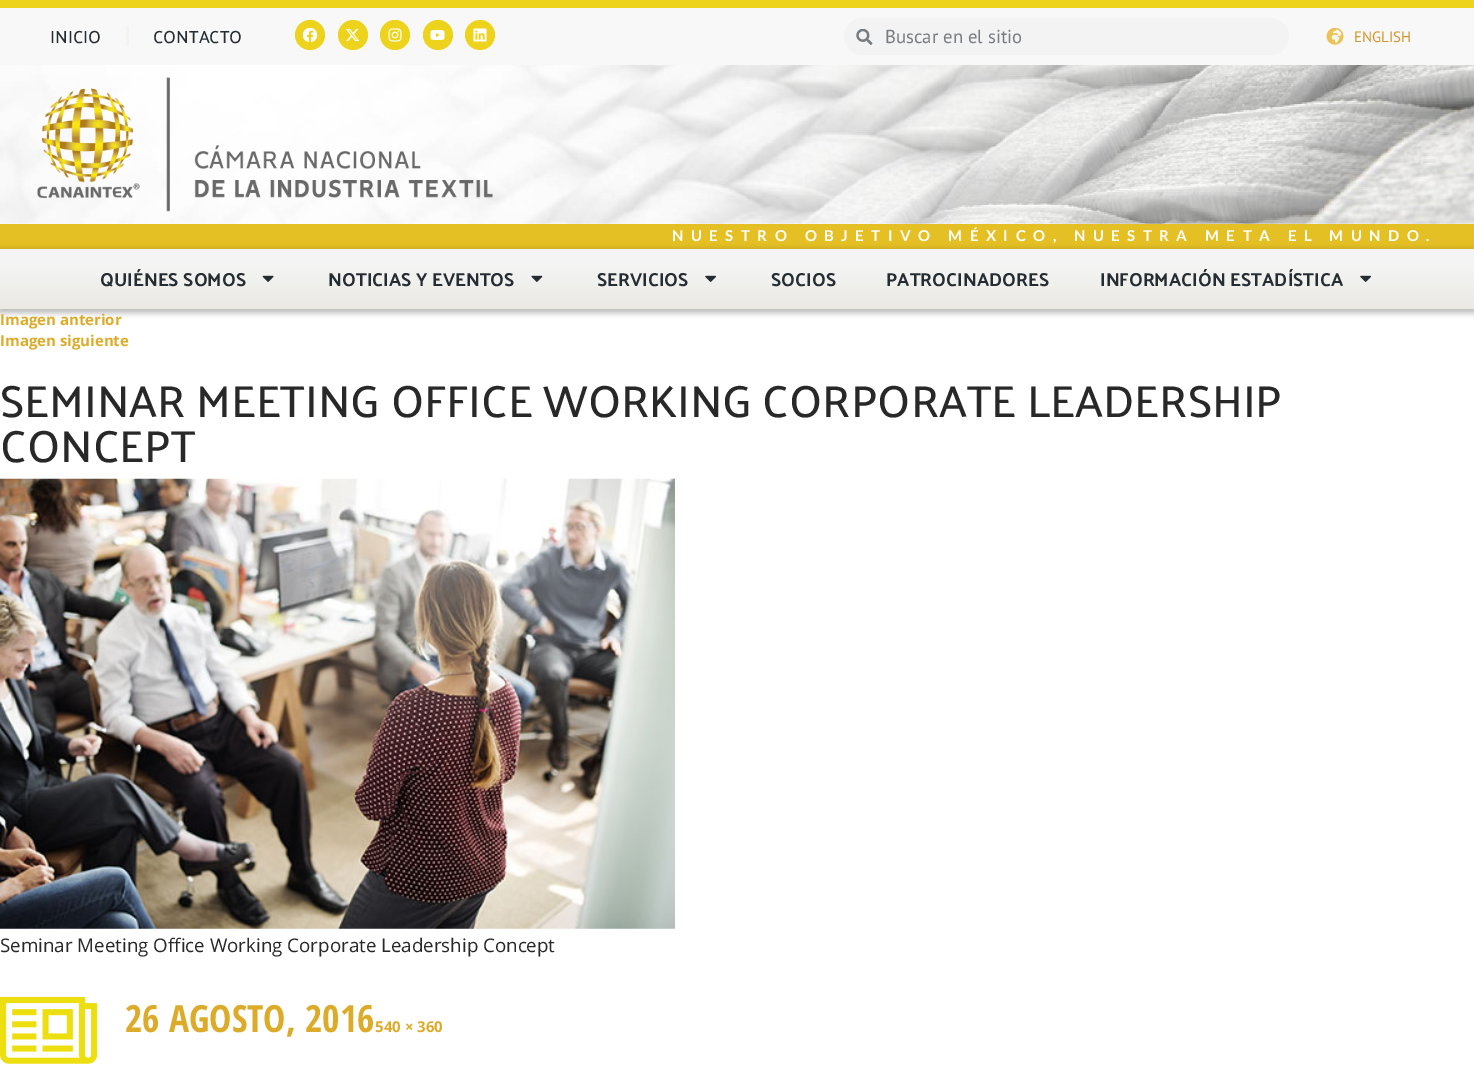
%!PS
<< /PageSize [1474 1073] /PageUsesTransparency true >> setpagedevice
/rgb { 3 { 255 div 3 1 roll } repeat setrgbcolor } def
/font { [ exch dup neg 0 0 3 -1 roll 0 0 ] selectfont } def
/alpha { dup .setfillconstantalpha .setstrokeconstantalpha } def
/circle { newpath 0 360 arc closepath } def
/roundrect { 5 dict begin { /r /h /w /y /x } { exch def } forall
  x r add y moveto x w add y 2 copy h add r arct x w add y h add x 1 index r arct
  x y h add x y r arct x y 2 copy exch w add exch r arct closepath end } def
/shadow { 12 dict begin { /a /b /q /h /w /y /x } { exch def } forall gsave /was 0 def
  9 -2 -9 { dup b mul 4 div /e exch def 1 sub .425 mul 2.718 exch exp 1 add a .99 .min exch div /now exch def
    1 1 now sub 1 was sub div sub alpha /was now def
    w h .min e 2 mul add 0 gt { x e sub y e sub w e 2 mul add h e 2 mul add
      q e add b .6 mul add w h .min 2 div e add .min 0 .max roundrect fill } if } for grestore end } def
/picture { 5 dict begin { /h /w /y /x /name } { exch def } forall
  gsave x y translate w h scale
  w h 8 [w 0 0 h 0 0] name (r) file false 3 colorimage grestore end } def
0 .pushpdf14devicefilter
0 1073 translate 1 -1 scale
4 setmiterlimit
255 255 255 rgb
0 0 1474 1073 rectfill
[
  [0 0 1474 8 238 211 28]
  [0 8 1474 57 248 248 248]
  [126 26 3 20 244 243 240]
] { aload pop rgb rectfill } forall
238 211 28 rgb
310 35 15 circle fill
(img/1.rgb) 303 28 15 15 picture
353 35 15 circle fill
(img/2.rgb) 346 28 14 14 picture
395 35 15 circle fill
(img/3.rgb) 388 28 14 14 picture
438 35 15 circle fill
(img/4.rgb) 430 30 15 10 picture
480 35 15 circle fill
(img/5.rgb) 473 28 14 14 picture
243 243 243 rgb
844 18 445 37 18.5 roundrect fill
(img/6.rgb) 856 29 17 16 picture
(img/7.rgb) 1326 28 18 17 picture
(img/8.rgb) 0 65 1474 159 picture
(img/9.rgb) 37 77 456 135 picture
229 192 36 rgb
0 224 1474 25 rectfill
0 0 0 rgb
-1 250 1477 63 0 3 0.27 shadow
gsave 0 249 moveto 1474 249 lineto 1474 309 lineto 0 309 lineto closepath clip newpath
<< /ShadingType 2 /ColorSpace /DeviceRGB /Coords [738 249 738 309] /Extend [true true] /Function << /FunctionType 3 /Domain [0 1] /Functions [<< /FunctionType 2 /Domain [0 1] /C0 [0.957 0.957 0.957] /C1 [0.957 0.957 0.957] /N 1 >> << /FunctionType 2 /Domain [0 1] /C0 [0.957 0.957 0.957] /C1 [0.918 0.914 0.89] /N 1 >>] /Bounds [0.28] /Encode [0 1 0 1] >> >> shfill grestore
(img/10.rgb) 262 275 12 7 picture
(img/11.rgb) 531 275 12 7 picture
(img/12.rgb) 705 275 11 7 picture
(img/12.rgb) 1360 275 11 7 picture
(img/13.rgb) 0 478 675 451 picture
(img/14.rgb) 0 996 98 68 picture
/Palanquin-Medium 17.5 font
37 45 51 rgb
50 43 moveto (INICIO) show
153 43 moveto (CONTACTO) show
/PTSans-Regular 18.75 font
119 124 128 rgb
885 43 moveto (Buscar en el sitio) show
/PTSans-Regular 15 font
209 150 43 rgb
1354 42 moveto (ENGLISH) show
/Lato-Bold 15 font
255 255 255 rgb
672 241 moveto 7.5 0 (NUESTRO OBJETIVO MÉXICO, NUESTRA META EL MUNDO.) ashow
/Palanquin-Bold 18.75 font
37 45 51 rgb
[
  [(QUIÉNES SOMOS) 100 286]
  [(NOTICIAS Y EVENTOS) 328 286]
  [(SERVICIOS) 597 286]
  [(SOCIOS) 771 286]
  [(PATROCINADORES) 886 286]
  [(INFORMACIÓN ESTADÍSTICA) 1100 286]
] { aload pop moveto show } forall
/OpenSans-Bold 15 font
220 171 41 rgb
0 325 moveto (Imagen anterior) show
0 346 moveto (Imagen siguiente) show
/Palanquin-Medium 45 font
40 40 40 rgb
0 417 moveto (SEMINAR MEETING OFFICE WORKING CORPORATE LEADERSHIP) show
0 462 moveto (CONCEPT) show
/OpenSans-Regular 18.75 font
0 952 moveto (Seminar Meeting Office Working Corporate Leadership Concept) show
/OpenSansCondensed-Bold 37.5 font
220 171 41 rgb
125 1032 moveto (26 AGOSTO, 2016) show
/OpenSans-Bold 15 font
375 1032 moveto (540 × 360) show
.poppdf14devicefilter showpage
